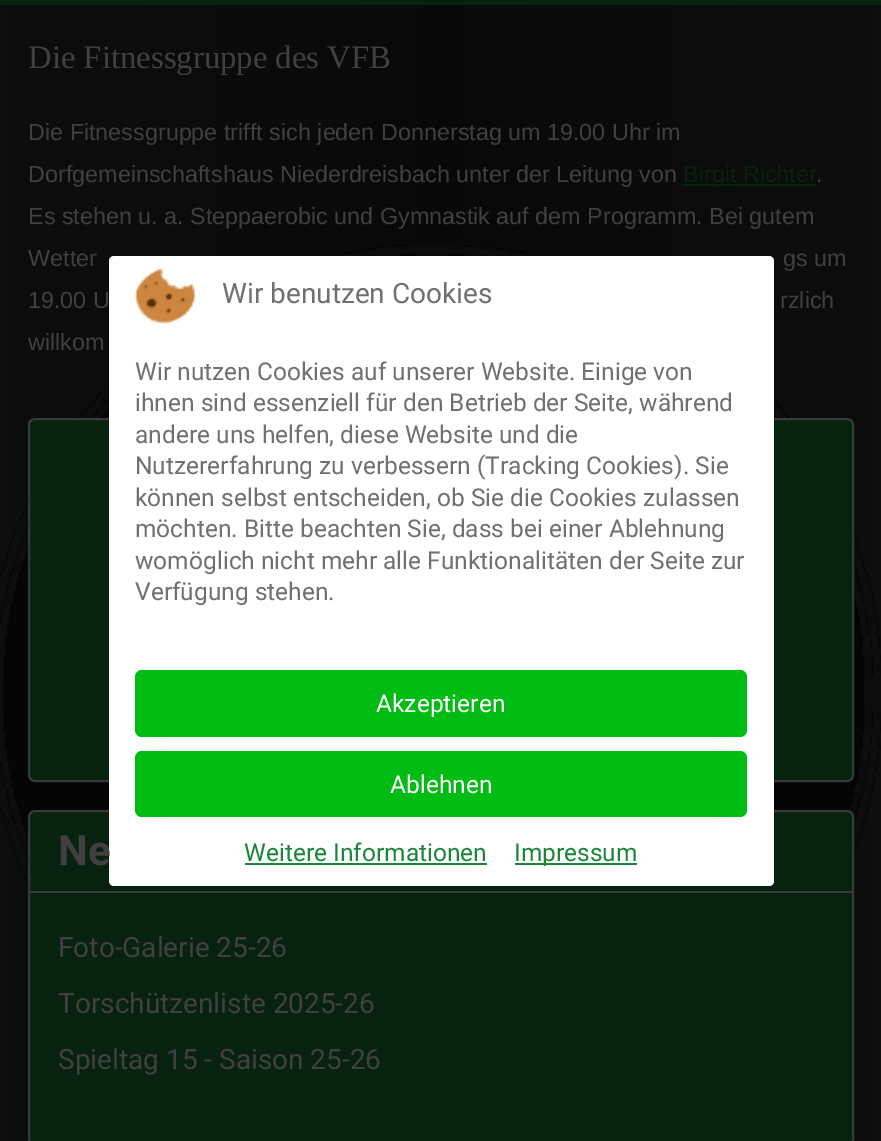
%!PS
<< /PageSize [881 1141] >> setpagedevice
/rgb { 3 { 255 div 3 1 roll } repeat setrgbcolor } def
/font { [ exch dup neg 0 0 3 -1 roll 0 0 ] selectfont } def
/roundrect { 5 dict begin { /r /h /w /y /x } { exch def } forall
  x r add y moveto x w add y 2 copy h add r arct x w add y h add x 1 index r arct
  x y h add x y r arct x y 2 copy exch w add exch r arct closepath end } def
/picture { 5 dict begin { /h /w /y /x /name } { exch def } forall
  gsave x y translate w h scale
  w h 8 [w 0 0 h 0 0] name (r) file false 3 colorimage grestore end } def
0 1141 translate 1 -1 scale
4 setmiterlimit
255 255 255 rgb
0 0 881 1141 rectfill
(img/1.rgb) 0 5 881 1136 picture
7 34 15 rgb
0 0 881 5 rectfill
683 184 133 2 rectfill
29 419 824 362 6 roundrect gsave fill grestore
56 57 58 rgb
2 setlinewidth
stroke
7 34 15 rgb
29 811 824 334 6 roundrect gsave fill grestore
56 57 58 rgb
stroke
30 891 822 2 rectfill
255 255 255 rgb
109 256 665 630 5 roundrect fill
(img/2.rgb) 134 267 62 57 picture
0 188 19 rgb
135 670 612 67 7 roundrect fill
135 751 612 66 7 roundrect fill
26 134 58 rgb
245 863 242 2 rectfill
515 863 122 2 rectfill
/LiberationSerif-Regular 32.75 font
64 64 64 rgb
28 68 moveto (Die Fitnessgruppe des VFB) show
/LiberationSans-Regular 23.35 font
28 140 moveto (Die Fitnessgruppe trifft sich jeden Donnerstag um 19.00 Uhr im) show
28 182 moveto (Dorfgemeinschaftshaus Niederdreisbach unter der Leitung von) show
7 34 15 rgb
683 182 moveto (Birgit Richter) show
64 64 64 rgb
[
  [(.) 816 182]
  [(Es stehen u. a. Steppaerobic und Gymnastik auf dem Programm. Bei gutem) 28 224]
  [(Wetter) 28 266]
  [(gs um) 783 266]
  [(19.00 U) 28 308]
  [(rzlich) 780 308]
  [(willkom) 28 350]
] { aload pop moveto show } forall
/Roboto-Bold 42 font
58 865 moveto (Ne) show
/Roboto-Regular 28 font
[
  [(Foto-Galerie 25-26) 58 957]
  [(Torschützenliste 2025-26) 58 1013]
  [(Spieltag 15 - Saison 25-26) 58 1069]
] { aload pop moveto show } forall
112 112 112 rgb
222 303 moveto (Wir benutzen Cookies) show
/Roboto-Regular 24.5 font
[
  [(Wir nutzen Cookies auf unserer Website. Einige von) 135 380]
  [(ihnen sind essenziell für den Betrieb der Seite, während) 135 411]
  [(andere uns helfen, diese Website und die) 135 443]
  [(Nutzererfahrung zu verbessern \(Tracking Cookies\). Sie) 135 474]
  [(können selbst entscheiden, ob Sie die Cookies zulassen) 135 506]
  [(möchten. Bitte beachten Sie, dass bei einer Ablehnung) 135 537]
  [(womöglich nicht mehr alle Funktionalitäten der Seite zur) 135 569]
  [(Verfügung stehen.) 135 600]
] { aload pop moveto show } forall
255 255 255 rgb
376 712 moveto (Akzeptieren) show
390 793 moveto (Ablehnen) show
26 134 58 rgb
244 861 moveto (Weitere Informationen) show
514 861 moveto (Impressum) show
showpage
